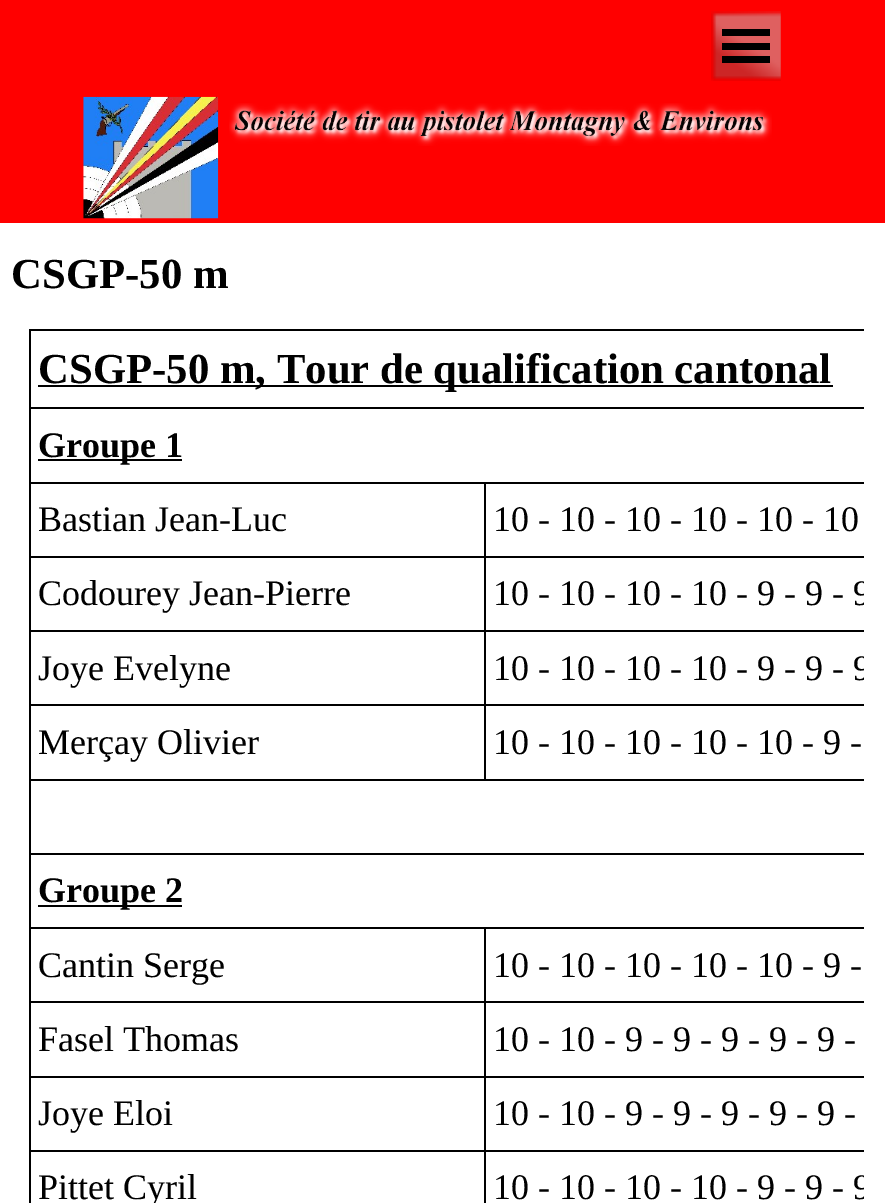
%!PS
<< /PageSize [885 1203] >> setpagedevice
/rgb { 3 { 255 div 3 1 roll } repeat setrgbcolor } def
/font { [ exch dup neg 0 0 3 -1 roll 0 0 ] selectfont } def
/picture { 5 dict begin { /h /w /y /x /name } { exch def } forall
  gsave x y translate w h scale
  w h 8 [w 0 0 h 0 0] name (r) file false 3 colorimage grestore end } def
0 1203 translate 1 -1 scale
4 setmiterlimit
255 0 0 rgb
0 0 885 1203 rectfill
(img/1.rgb) 711 11 70 70 picture
[
  [722 29 48 7 0 0 0]
  [722 43 48 7 0 0 0]
  [722 56 48 7 0 0 0]
] { aload pop rgb rectfill } forall
(img/2.rgb) 83 96 136 123 picture
(img/3.rgb) 229 103 543 43 picture
[
  [0 223 885 980 255 255 255]
  [29 329 835 2 0 0 0]
  [29 407 835 2 0 0 0]
  [484 482 380 2 0 0 0]
  [484 556 380 2 0 0 0]
  [484 630 380 2 0 0 0]
  [484 704 380 2 0 0 0]
  [29 779 835 2 0 0 0]
  [484 704 2 77 0 0 0]
  [29 704 457 2 0 0 0]
  [484 630 2 77 0 0 0]
  [29 630 457 2 0 0 0]
  [484 556 2 76 0 0 0]
  [29 556 457 2 0 0 0]
  [484 482 2 76 0 0 0]
  [29 482 457 2 0 0 0]
  [29 853 835 2 0 0 0]
  [484 927 380 2 0 0 0]
  [484 1001 380 2 0 0 0]
  [484 1076 380 2 0 0 0]
  [484 1150 380 2 0 0 0]
  [484 1150 2 53 0 0 0]
  [29 1150 457 2 0 0 0]
  [484 1076 2 76 0 0 0]
  [29 1076 457 2 0 0 0]
  [484 1001 2 77 0 0 0]
  [29 1001 457 2 0 0 0]
  [484 927 2 77 0 0 0]
  [29 927 457 2 0 0 0]
  [29 1150 2 53 0 0 0]
  [29 1076 2 76 0 0 0]
  [29 1001 2 77 0 0 0]
  [29 927 2 77 0 0 0]
  [29 853 2 76 0 0 0]
  [29 779 2 76 0 0 0]
  [29 704 2 77 0 0 0]
  [29 630 2 77 0 0 0]
  [29 556 2 76 0 0 0]
  [29 482 2 76 0 0 0]
  [29 407 2 77 0 0 0]
  [29 329 2 81 0 0 0]
  [38 385 795 2 0 0 0]
  [38 459 144 2 0 0 0]
  [38 905 144 2 0 0 0]
] { aload pop rgb rectfill } forall
/LiberationSerif-Bold 42.75 font
11 288 moveto (CSGP-50 m) show
38 383 moveto (CSGP-50 m, Tour de qualification cantonal) show
/LiberationSerif-Bold 36 font
38 457 moveto (Groupe 1) show
/LiberationSerif-Regular 36 font
[
  [(Bastian Jean-Luc) 38 531]
  [(10 - 10 - 10 - 10 - 10 - 10) 493 531]
  [(Codourey Jean-Pierre) 38 605]
] { aload pop moveto show } forall
gsave
23 322 841 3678 rectclip
493 605 moveto (10 - 10 - 10 - 10 - 9 - 9 - 9) show
grestore
38 680 moveto (Joye Evelyne) show
gsave
23 322 841 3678 rectclip
493 680 moveto (10 - 10 - 10 - 10 - 9 - 9 - 9) show
grestore
38 754 moveto (Merçay Olivier) show
493 754 moveto (10 - 10 - 10 - 10 - 10 - 9 -) show
/LiberationSerif-Bold 36 font
38 902 moveto (Groupe 2) show
/LiberationSerif-Regular 36 font
[
  [(Cantin Serge) 38 977]
  [(10 - 10 - 10 - 10 - 10 - 9 -) 493 977]
  [(Fasel Thomas) 38 1051]
  [(10 - 10 - 9 - 9 - 9 - 9 - 9 -) 493 1051]
  [(Joye Eloi) 38 1125]
  [(10 - 10 - 9 - 9 - 9 - 9 - 9 -) 493 1125]
  [(Pittet Cyril) 38 1199]
] { aload pop moveto show } forall
gsave
23 322 841 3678 rectclip
493 1199 moveto (10 - 10 - 10 - 10 - 9 - 9 - 9) show
grestore
showpage
